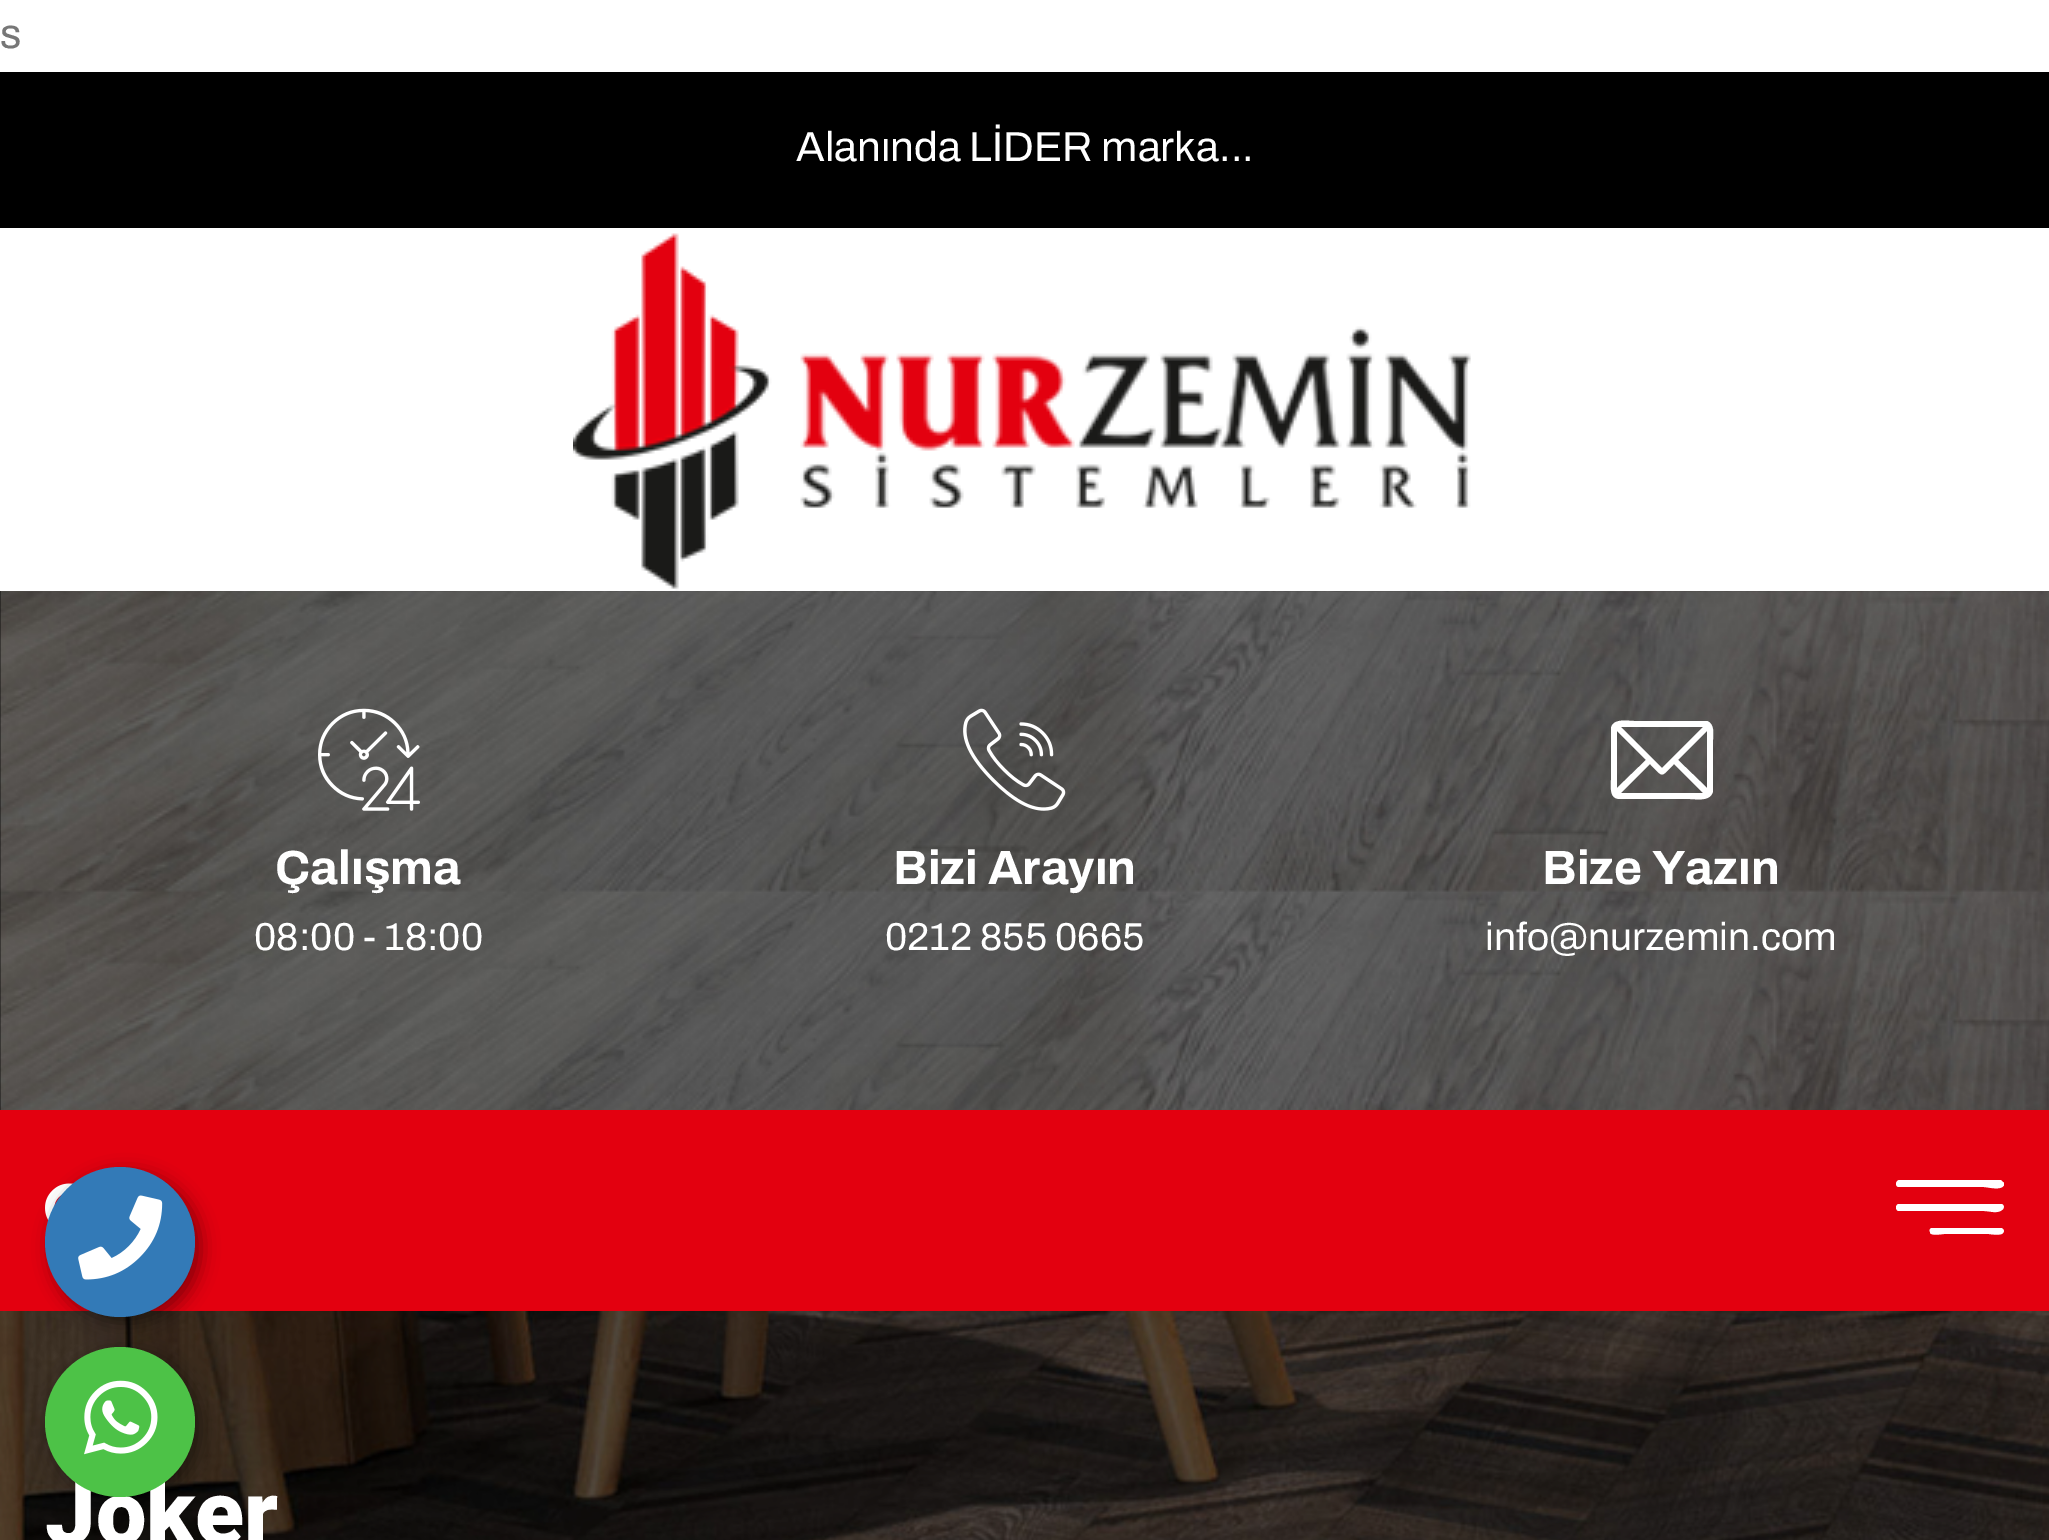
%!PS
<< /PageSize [2049 1540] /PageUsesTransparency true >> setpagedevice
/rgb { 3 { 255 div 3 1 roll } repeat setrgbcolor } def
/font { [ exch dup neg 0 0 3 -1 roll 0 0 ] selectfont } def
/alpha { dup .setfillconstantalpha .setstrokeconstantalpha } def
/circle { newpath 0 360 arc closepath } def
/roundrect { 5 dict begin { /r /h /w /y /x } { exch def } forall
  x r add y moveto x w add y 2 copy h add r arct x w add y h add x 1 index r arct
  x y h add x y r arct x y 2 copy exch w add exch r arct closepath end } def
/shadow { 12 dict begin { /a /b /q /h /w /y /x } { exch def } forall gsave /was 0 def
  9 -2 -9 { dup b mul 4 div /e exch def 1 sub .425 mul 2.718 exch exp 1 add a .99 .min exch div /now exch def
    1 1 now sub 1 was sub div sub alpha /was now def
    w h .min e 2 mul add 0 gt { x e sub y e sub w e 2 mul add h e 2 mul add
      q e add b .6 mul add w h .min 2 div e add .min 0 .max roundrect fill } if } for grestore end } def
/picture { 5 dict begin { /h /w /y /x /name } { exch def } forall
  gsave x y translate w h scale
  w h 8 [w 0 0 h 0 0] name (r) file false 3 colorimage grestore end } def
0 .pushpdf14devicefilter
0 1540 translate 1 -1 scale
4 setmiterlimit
255 255 255 rgb
0 0 2049 1540 rectfill
0 0 0 rgb
0 72 2049 156 rectfill
(img/1.rgb) 573 233 898 358 picture
(img/2.rgb) 0 591 2049 519 picture
(img/3.rgb) 318 708 102 103 picture
(img/4.rgb) 963 708 103 103 picture
255 255 255 rgb
1704 721 moveto 1707 721 lineto 1715 724 1713 734 1713 740 curveto 1713 791 lineto 1711 802 1696 799 1690 799 curveto 1620 799 lineto 1609 799 1611 787 1611 780 curveto 1611 728 lineto 1613 718 1628 721 1634 721 curveto closepath 1703 727 moveto 1621 727 lineto 1662 768 lineto closepath 1617 788 moveto 1646 760 lineto 1617 731 lineto closepath 1621 793 moveto 1703 793 lineto 1674 764 lineto 1660 778 1664 778 1650 764 curveto closepath 1707 788 moveto 1707 731 lineto 1678 760 lineto closepath fill
227 0 15 rgb
0 1110 2049 201 rectfill
(img/5.rgb) 45 1183 29 38 picture
255 255 255 rgb
1899 1187 moveto 1895 1187 1895 1181 1899 1180 curveto 2001 1180 lineto 2003 1182 lineto 2004 1182 2004 1184 2004 1185 curveto 2002 1191 1987 1187 1984 1187 curveto closepath 2001 1204 moveto 2004 1204 2005 1208 2002 1210 curveto 1997 1214 1990 1211 1984 1211 curveto 1899 1211 lineto 1895 1211 1895 1204 1899 1204 curveto closepath 2001 1228 moveto 2003 1228 2005 1231 2003 1233 curveto 2001 1236 1990 1234 1989 1234 curveto 1944 1234 lineto 1942 1234 1932 1236 1930 1233 curveto 1930 1232 lineto 1929 1230 1930 1228 1932 1228 curveto closepath fill
(img/6.rgb) 0 1311 2049 229 picture
0 0 0 rgb
51 1173 150 150 75 9 0.4 shadow
51 122 183 rgb
120 1242 75 circle fill
(img/7.rgb) 78 1195 85 85 picture
0 0 0 rgb
51 1353 150 150 75 9 0.4 shadow
/Archivo-Regular 42 font
119 119 119 rgb
0 48 moveto (s) show
255 255 255 rgb
796 161 moveto (Alanında LİDER marka...) show
/Archivo-Bold 48 font
275 884 moveto (Çalışma) show
/Archivo-Regular 39 font
254 950 moveto (08:00 - 18:00) show
/Archivo-Bold 48 font
893 884 moveto (Bizi Arayın) show
/Archivo-Regular 39 font
885 950 moveto (0212 855 0665) show
/Archivo-Bold 48 font
1542 884 moveto (Bize Yazın) show
/Archivo-Regular 39 font
1485 950 moveto (info@nurzemin.com) show
/Roboto-Black 90 font
45 1544 moveto (Joker) show
77 194 71 rgb
120 1422 75 circle fill
(img/8.rgb) 84 1380 74 75 picture
.poppdf14devicefilter showpage
